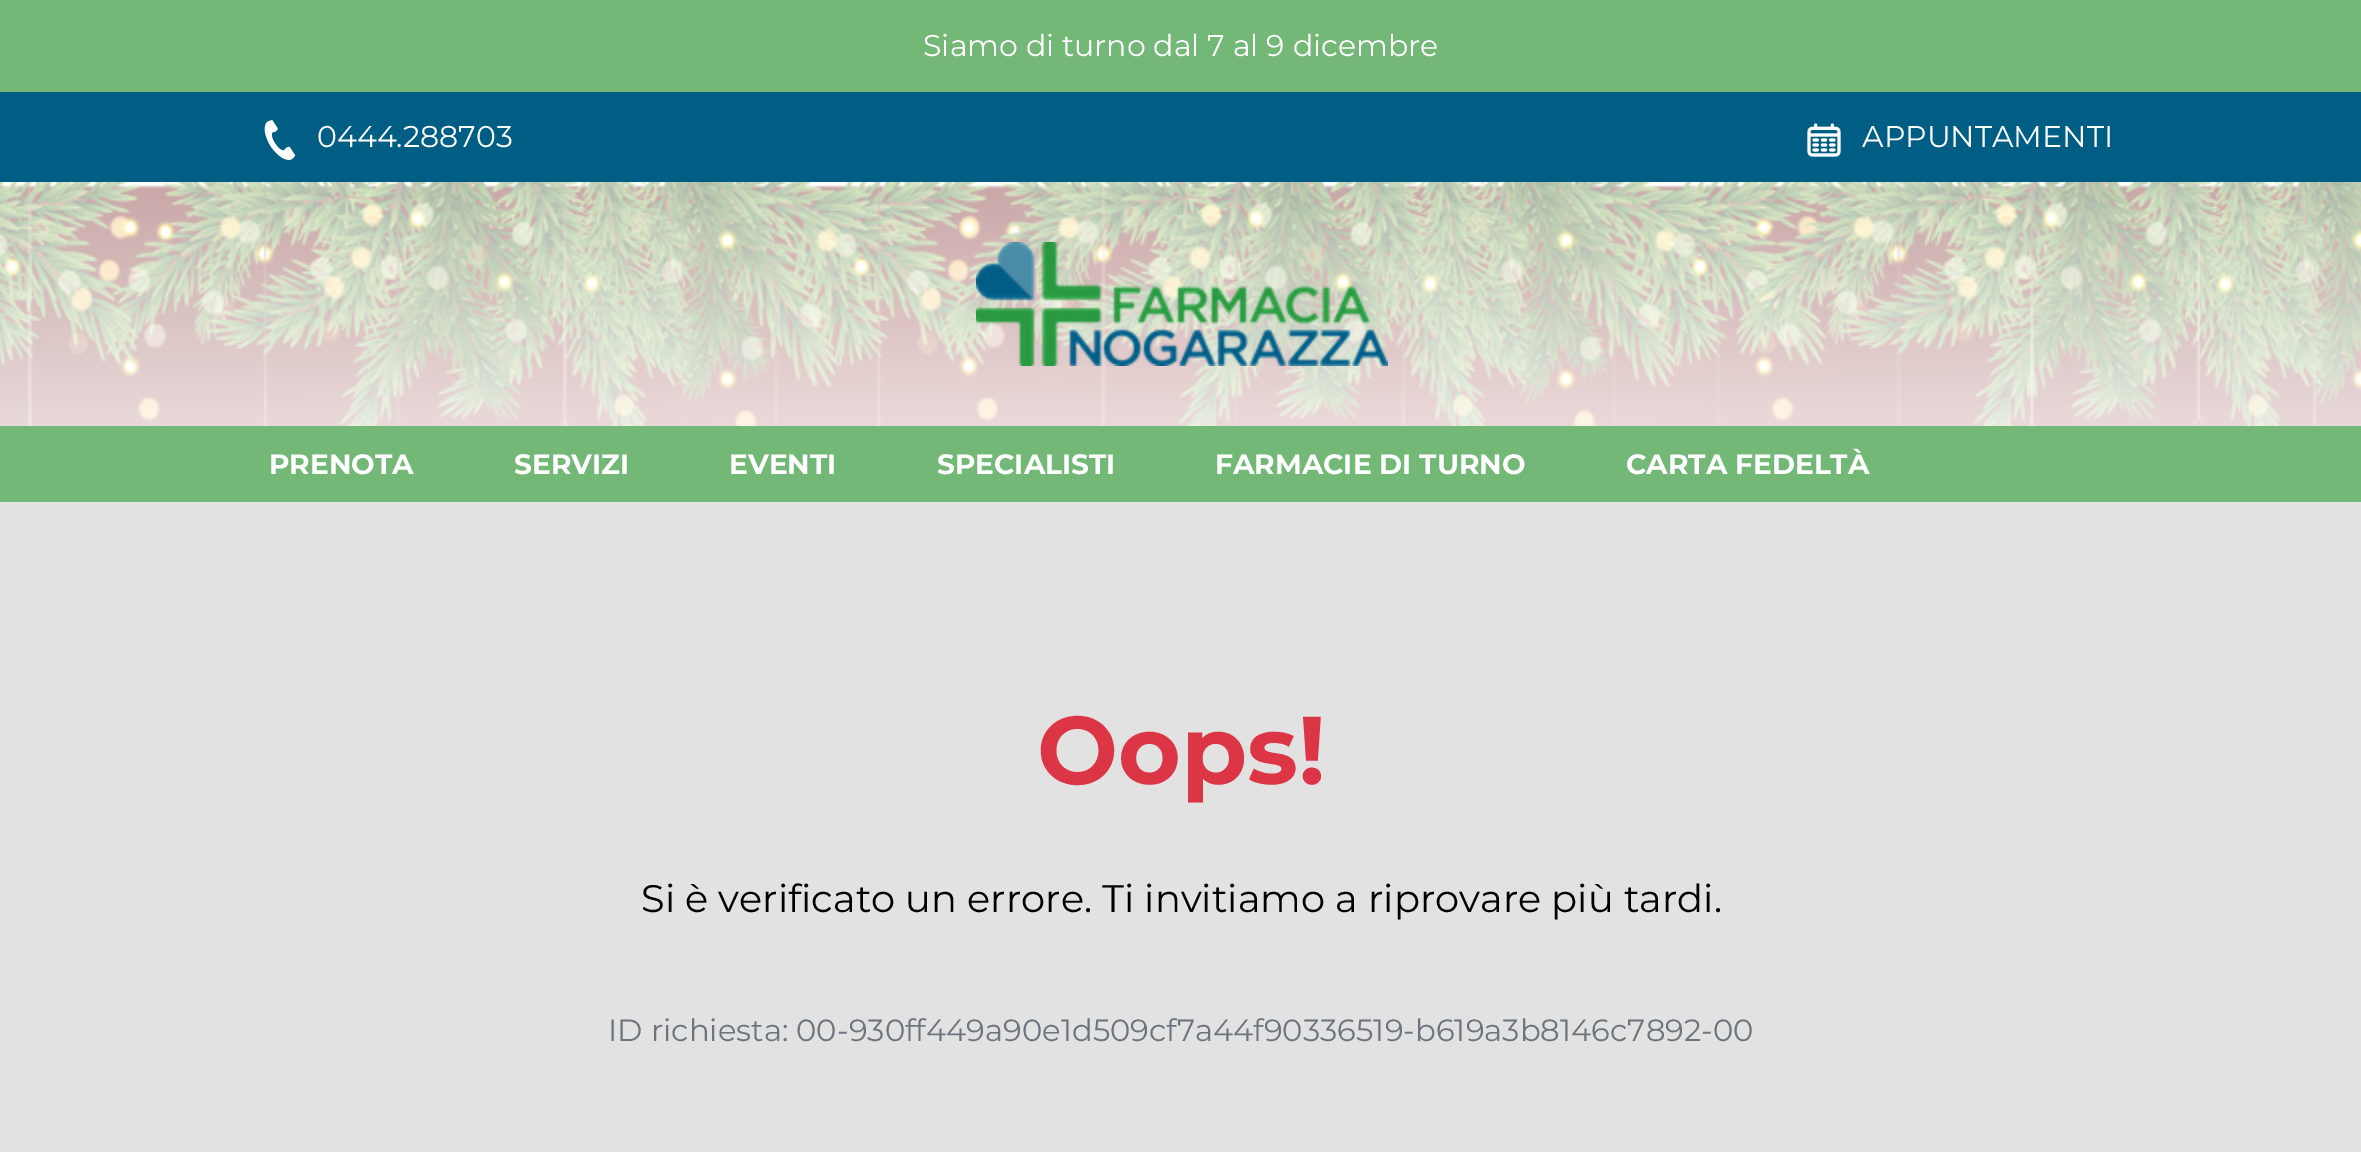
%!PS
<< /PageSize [2361 1152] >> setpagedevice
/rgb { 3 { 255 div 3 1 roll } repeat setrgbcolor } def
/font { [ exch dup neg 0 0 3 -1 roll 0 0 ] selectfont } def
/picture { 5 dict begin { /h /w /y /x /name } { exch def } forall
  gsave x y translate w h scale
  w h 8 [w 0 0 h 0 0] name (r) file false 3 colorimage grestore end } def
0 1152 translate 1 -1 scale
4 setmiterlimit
227 226 227 rgb
0 0 2361 1152 rectfill
116 184 120 rgb
0 0 2361 92 rectfill
0 94 133 rgb
0 92 2361 90 rectfill
(img/1.rgb) 264 120 32 40 picture
(img/2.rgb) 1807 123 34 34 picture
(img/3.rgb) 0 182 2361 244 picture
(img/4.rgb) 976 242 412 124 picture
116 184 120 rgb
0 426 2361 76 rectfill
/Montserrat-Regular 30 font
255 255 255 rgb
[
  [(Siamo di turno dal 7 al 9 dicembre) 923 56]
  [(0444.288703) 317 147]
  [(APPUNTAMENTI) 1862 147]
] { aload pop moveto show } forall
/Montserrat-Bold 28 font
[
  [(PRENOTA) 269 474]
  [(SERVIZI) 514 474]
  [(EVENTI) 729 474]
  [(SPECIALISTI) 937 474]
  [(FARMACIE DI TURNO) 1215 474]
  [(CARTA FEDELTÀ) 1626 474]
] { aload pop moveto show } forall
/Montserrat-Bold 96 font
220 53 69 rgb
1037 784 moveto (Oops!) show
/Montserrat-Regular 38.4 font
0 0 0 rgb
641 912 moveto (Si è verificato un errore. Ti invitiamo a riprovare più tardi.) show
/Montserrat-Regular 30.7 font
108 117 125 rgb
608 1041 moveto (ID richiesta: 00-930ff449a90e1d509cf7a44f90336519-b619a3b8146c7892-00) show
showpage
